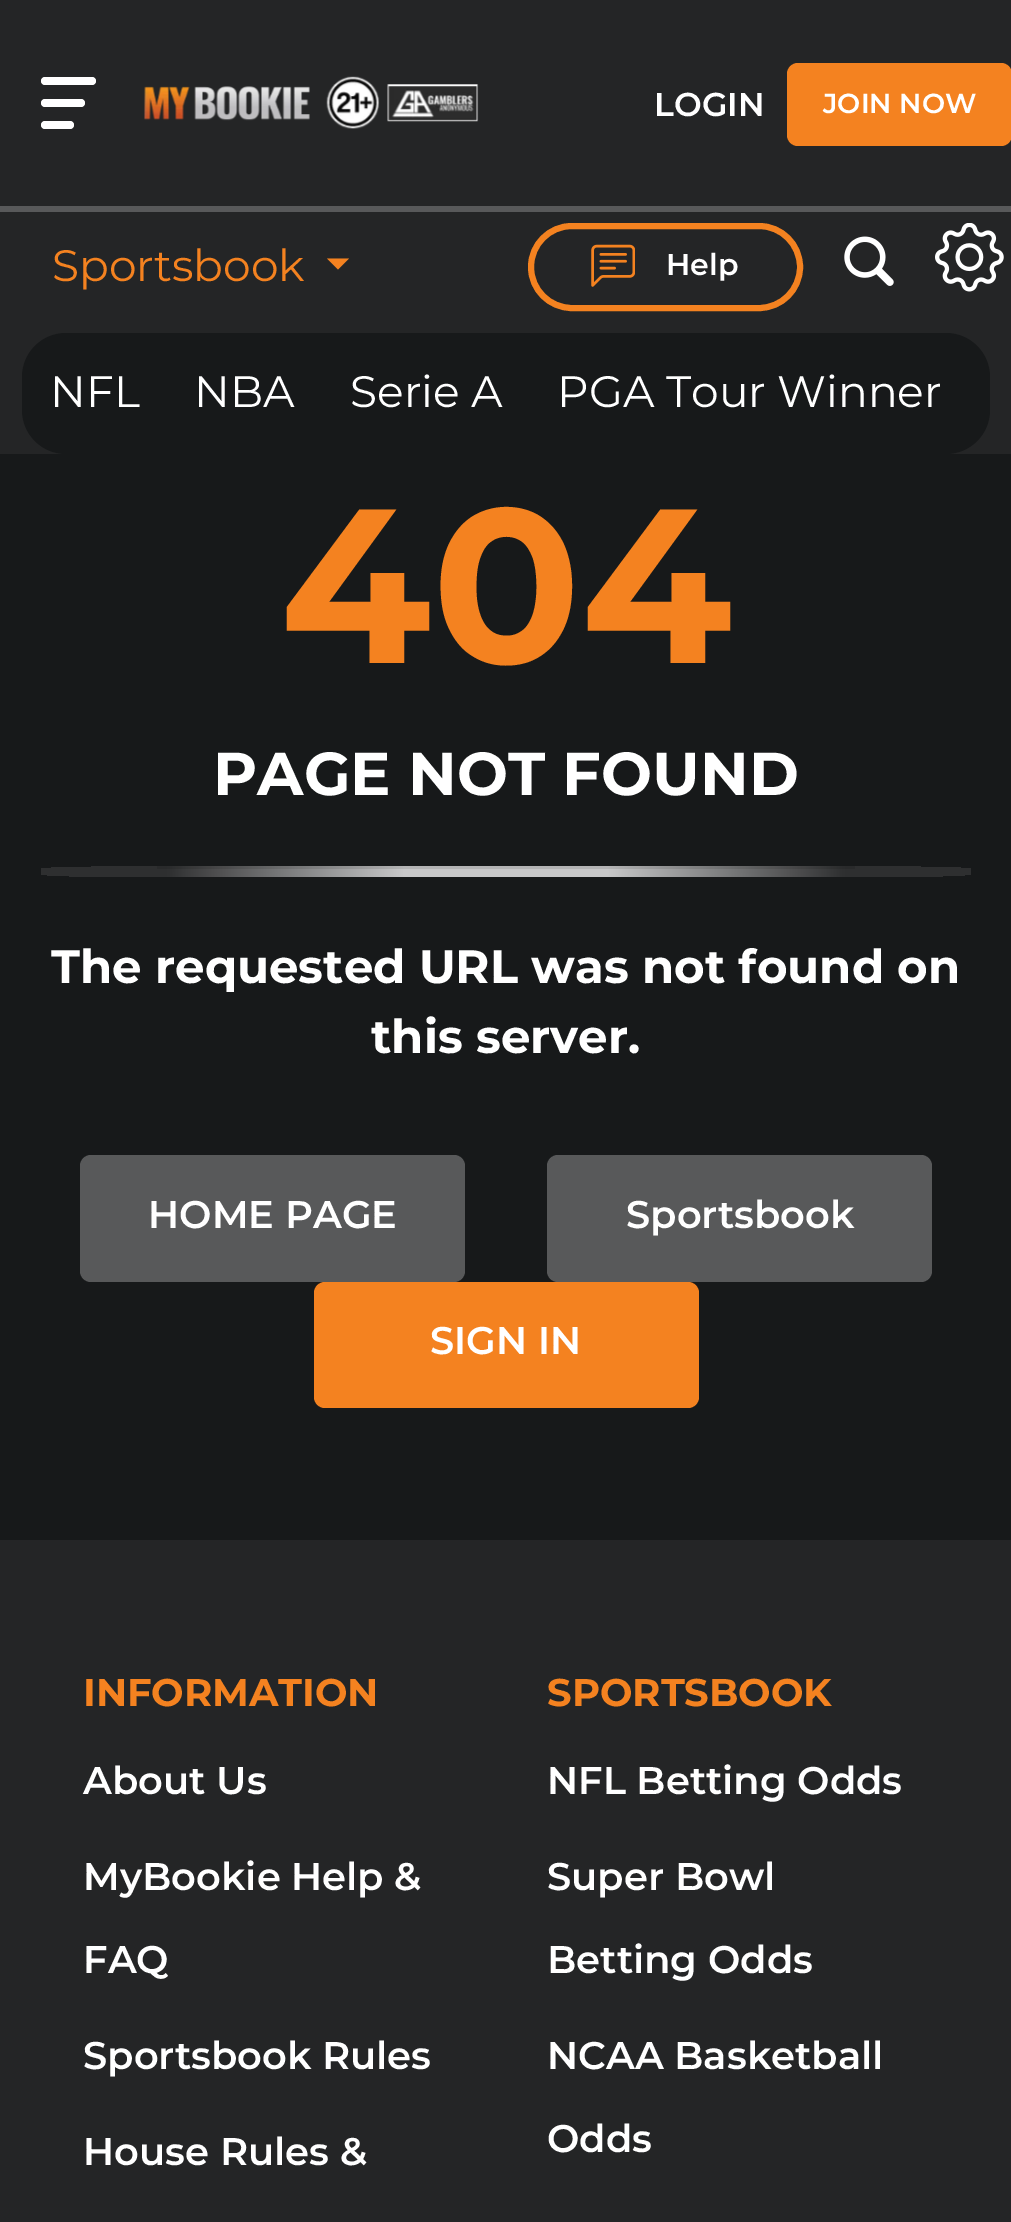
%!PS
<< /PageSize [1011 2222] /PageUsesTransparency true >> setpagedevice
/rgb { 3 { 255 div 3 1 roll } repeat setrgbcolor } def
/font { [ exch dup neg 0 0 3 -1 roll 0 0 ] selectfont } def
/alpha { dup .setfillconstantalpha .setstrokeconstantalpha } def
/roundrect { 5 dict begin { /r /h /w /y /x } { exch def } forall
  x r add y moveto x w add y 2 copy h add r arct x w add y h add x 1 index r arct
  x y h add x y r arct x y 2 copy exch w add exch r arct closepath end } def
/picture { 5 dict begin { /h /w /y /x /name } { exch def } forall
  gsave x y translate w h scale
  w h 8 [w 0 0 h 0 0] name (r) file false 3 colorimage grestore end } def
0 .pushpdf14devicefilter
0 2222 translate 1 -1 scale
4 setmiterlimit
23 25 26 rgb
0 0 1011 2222 rectfill
36 37 38 rgb
0 0 1011 206 rectfill
88 89 90 rgb
0 206 1011 6 rectfill
255 255 255 rgb
41 99 44 8 4 roundrect fill
41 77 55 8 4 roundrect fill
41 121 33 8 4 roundrect fill
(img/1.rgb) 144 86 166 35 picture
(img/2.rgb) 326 76 153 53 picture
244 130 32 rgb
787 63 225 83 11 roundrect fill
36 37 38 rgb
0 212 1011 242 rectfill
244 130 32 rgb
327 258.5 moveto 349 258.5 lineto 338 269.5 lineto closepath fill
6 setlinewidth
531 226 269 82 41 roundrect stroke
(img/3.rgb) 591 244 44 43 picture
(img/4.rgb) 844 236 50 50 picture
(img/5.rgb) 935 223 69 69 picture
23 25 26 rgb
22 333 968 121 44 roundrect fill
gsave 274 866 moveto 738 866 lineto 867 866 971 867 971 869 curveto 41 869 lineto 41 867 145 866 274 866 curveto closepath clip newpath 506 865 translate 465 465 scale
<< /ShadingType 3 /ColorSpace /DeviceRGB /Coords [0 0 0 0 0 1] /Extend [true true] /Function << /FunctionType 3 /Domain [0 1] /Functions [<< /FunctionType 2 /Domain [0 1] /C0 [0.784 0.784 0.788] /C1 [0.784 0.784 0.788] /N 1 >> << /FunctionType 2 /Domain [0 1] /C0 [0.784 0.784 0.788] /C1 [0.18 0.184 0.188] /N 1 >> << /FunctionType 2 /Domain [0 1] /C0 [0.18 0.184 0.188] /C1 [0.18 0.184 0.188] /N 1 >>] /Bounds [0.22 0.73] /Encode [0 1 0 1 0 1] >> >> shfill grestore
gsave 177 877 moveto 97 877 41 876 41 874 curveto 41 869 lineto 971 869 lineto 971 874 lineto 971 876 915 877 835 877 curveto closepath clip newpath 506 873 translate 465 465 scale
<< /ShadingType 3 /ColorSpace /DeviceRGB /Coords [0 0 0 0 0 1] /Extend [true true] /Function << /FunctionType 3 /Domain [0 1] /Functions [<< /FunctionType 2 /Domain [0 1] /C0 [0.784 0.784 0.788] /C1 [0.784 0.784 0.788] /N 1 >> << /FunctionType 2 /Domain [0 1] /C0 [0.784 0.784 0.788] /C1 [0.18 0.184 0.188] /N 1 >> << /FunctionType 2 /Domain [0 1] /C0 [0.18 0.184 0.188] /C1 [0.18 0.184 0.188] /N 1 >>] /Bounds [0.22 0.73] /Encode [0 1 0 1 0 1] >> >> shfill grestore
0.1 alpha
0 0 0 rgb
157 866 698 3 rectfill
1 alpha
88 89 90 rgb
80 1155 385 127 11 roundrect fill
547 1155 385 127 11 roundrect fill
244 130 32 rgb
314 1282 385 126 11 roundrect fill
36 37 38 rgb
0 1540 1011 682 rectfill
/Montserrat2-Thin 33 font
255 255 255 rgb
654 116 moveto (LOGIN) show
/Montserrat2-Thin 27.5 font
823 113 moveto (JOIN NOW) show
/Montserrat-Thin 44 font
244 130 32 rgb
52 281 moveto (Sportsbook) show
/Montserrat2-Thin 30 font
255 255 255 rgb
666 275 moveto (Help) show
/Montserrat-Thin 44 font
[
  [(NFL) 50 407]
  [(NBA) 194 407]
  [(Serie A) 350 407]
  [(PGA Tour Winner) 557 407]
] { aload pop moveto show } forall
/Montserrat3-Thin 220 font
244 130 32 rgb
280 663 moveto (404) show
/Montserrat3-Thin 60.5 font
255 255 255 rgb
213 795 moveto (PAGE NOT FOUND) show
/Montserrat3-Thin 46.75 font
51 983 moveto (The requested URL was not found on) show
371 1053 moveto (this server.) show
/Montserrat2-Thin 38.5 font
[
  [(HOME PAGE) 148 1228]
  [(Sportsbook) 626 1228]
  [(SIGN IN) 430 1354]
] { aload pop moveto show } forall
/Montserrat3-Thin 38.5 font
244 130 32 rgb
83 1706 moveto (INFORMATION) show
/Montserrat2-Thin 38.5 font
255 255 255 rgb
[
  [(About Us) 83 1794]
  [(MyBookie Help &) 83 1890]
  [(FAQ) 83 1973]
  [(Sportsbook Rules) 83 2069]
  [(House Rules &) 83 2165]
] { aload pop moveto show } forall
/Montserrat3-Thin 38.5 font
244 130 32 rgb
547 1706 moveto (SPORTSBOOK) show
/Montserrat2-Thin 38.5 font
255 255 255 rgb
[
  [(NFL Betting Odds) 547 1794]
  [(Super Bowl) 547 1890]
  [(Betting Odds) 547 1973]
  [(NCAA Basketball) 547 2069]
  [(Odds) 547 2152]
] { aload pop moveto show } forall
.poppdf14devicefilter showpage
